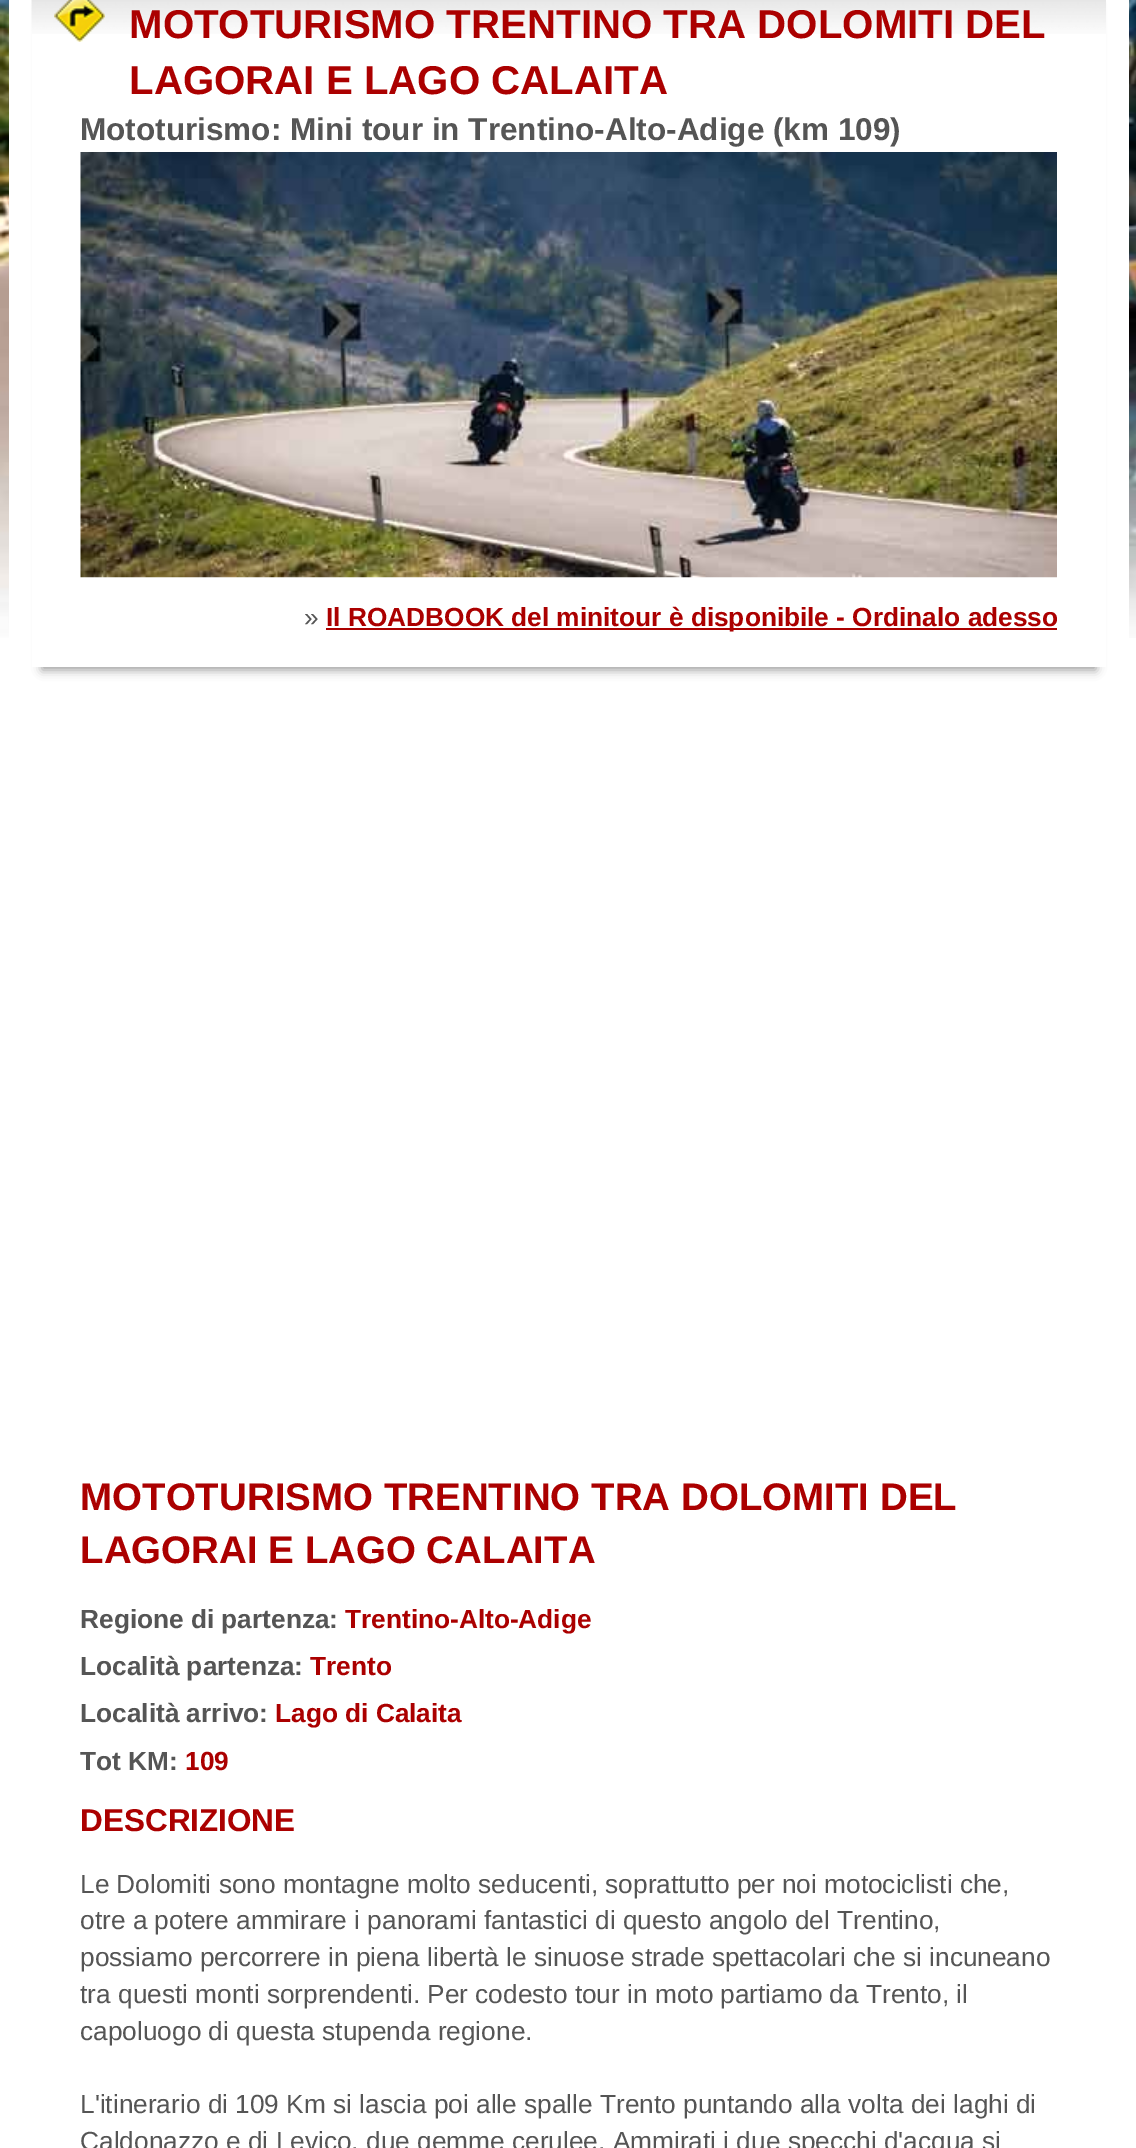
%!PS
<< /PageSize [1136 2148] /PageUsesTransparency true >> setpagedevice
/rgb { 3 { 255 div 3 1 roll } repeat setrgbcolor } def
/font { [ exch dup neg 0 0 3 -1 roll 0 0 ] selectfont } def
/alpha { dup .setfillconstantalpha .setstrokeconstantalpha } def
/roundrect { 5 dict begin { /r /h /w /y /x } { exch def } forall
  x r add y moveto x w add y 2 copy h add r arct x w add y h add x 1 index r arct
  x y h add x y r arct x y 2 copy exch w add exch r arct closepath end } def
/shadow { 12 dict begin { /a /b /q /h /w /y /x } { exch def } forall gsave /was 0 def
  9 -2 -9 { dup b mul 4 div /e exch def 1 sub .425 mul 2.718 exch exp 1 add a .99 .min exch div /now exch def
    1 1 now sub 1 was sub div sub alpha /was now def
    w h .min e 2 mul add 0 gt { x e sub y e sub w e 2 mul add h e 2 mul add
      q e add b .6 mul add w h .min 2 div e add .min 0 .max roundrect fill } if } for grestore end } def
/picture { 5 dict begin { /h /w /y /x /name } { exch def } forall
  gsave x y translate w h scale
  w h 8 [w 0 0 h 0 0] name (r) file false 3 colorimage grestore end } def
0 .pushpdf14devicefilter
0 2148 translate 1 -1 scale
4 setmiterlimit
255 255 255 rgb
0 0 1136 2148 rectfill
(img/1.rgb) 0 0 1136 638 picture
9 0 1120 638 rectfill
gsave
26 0 moveto 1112 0 lineto 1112 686 lineto 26 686 lineto closepath 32 -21 moveto 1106 -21 lineto 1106 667 lineto 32 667 lineto closepath eoclip newpath
153 153 153 rgb
42 4 1054 666 0 5 1 shadow
grestore
(img/2.rgb) 31 0 1075 34 picture
(img/3.rgb) 54 0 51 42 picture
(img/4.rgb) 80 152 977 426 picture
171 0 0 rgb
326 628 731 2 rectfill
/LiberationSans-Bold 40.25 font
129 38 moveto (MOTOTURISMO TRENTINO TRA DOLOMITI DEL) show
129 94 moveto (LAGORAI E LAGO CALAITA) show
/LiberationSans-Bold 31.5 font
85 85 85 rgb
80 140 moveto (Mototurismo: Mini tour in Trentino-Alto-Adige \(km 109\)) show
/LiberationSans-Regular 26.25 font
304 626 moveto (») show
/LiberationSans-Bold 26.25 font
171 0 0 rgb
326 626 moveto (Il ROADBOOK del minitour è disponibile - Ordinalo adesso) show
/LiberationSans-Bold 38.5 font
80 1510 moveto (MOTOTURISMO TRENTINO TRA DOLOMITI DEL) show
80 1563 moveto (LAGORAI E LAGO CALAITA) show
/LiberationSans-Bold 26.25 font
85 85 85 rgb
80 1628 moveto (Regione di partenza:) show
171 0 0 rgb
345 1628 moveto (Trentino-Alto-Adige) show
85 85 85 rgb
80 1675 moveto (Località partenza:) show
171 0 0 rgb
310 1675 moveto (Trento) show
85 85 85 rgb
80 1722 moveto (Località arrivo:) show
171 0 0 rgb
275 1722 moveto (Lago di Calaita) show
85 85 85 rgb
80 1770 moveto (Tot KM:) show
171 0 0 rgb
185 1770 moveto (109) show
/LiberationSans-Bold 31.5 font
80 1831 moveto (DESCRIZIONE) show
/LiberationSans-Regular 26.25 font
85 85 85 rgb
[
  [(Le Dolomiti sono montagne molto seducenti, soprattutto per noi motociclisti che,) 80 1893]
  [(otre a potere ammirare i panorami fantastici di questo angolo del Trentino,) 80 1929]
  [(possiamo percorrere in piena libertà le sinuose strade spettacolari che si incuneano) 80 1966]
  [(tra questi monti sorprendenti. Per codesto tour in moto) 80 2003]
  [(partiamo da Trento, il) 720 2003]
  [(capoluogo di questa stupenda regione.) 80 2040]
  [(L'itinerario di 109 Km si lascia poi alle spalle Trento puntando alla volta dei laghi di) 80 2113]
  [(Caldonazzo e di Levico, due gemme cerulee. Ammirati i due specchi d'acqua si) 80 2150]
] { aload pop moveto show } forall
.poppdf14devicefilter showpage
